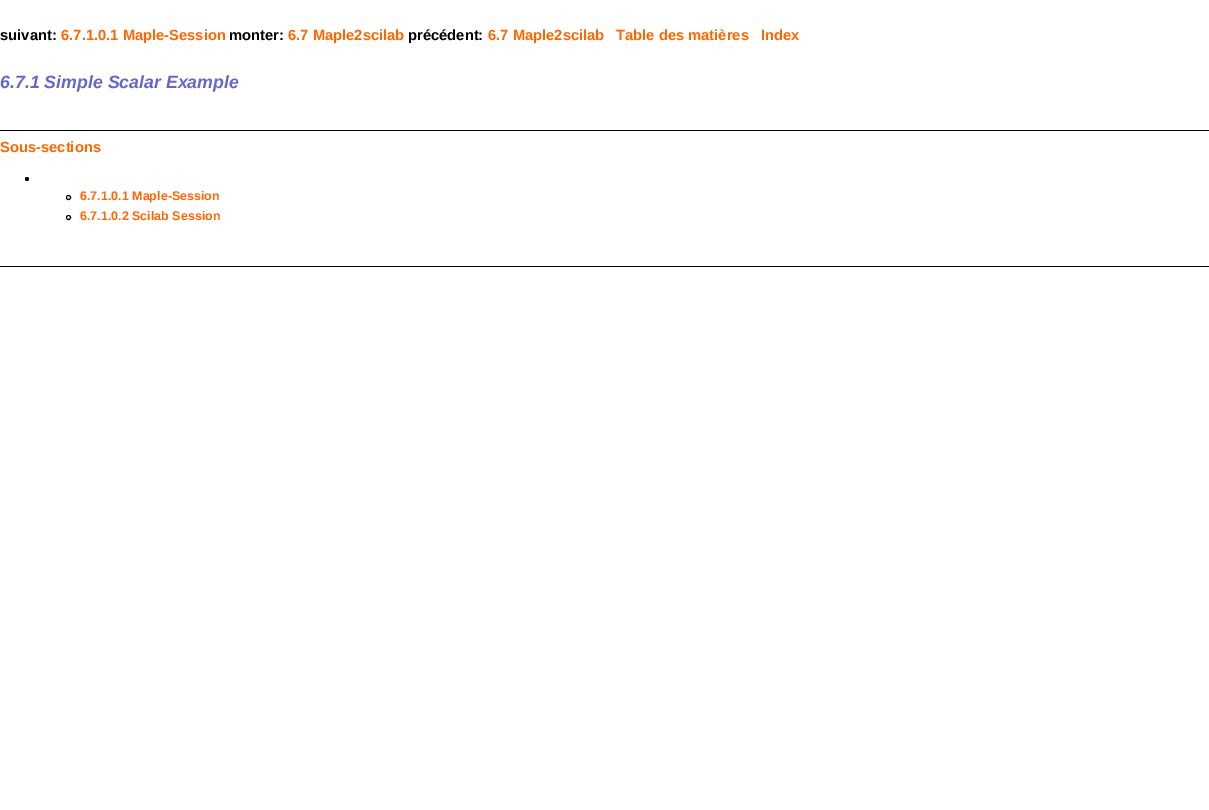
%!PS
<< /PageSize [1209 810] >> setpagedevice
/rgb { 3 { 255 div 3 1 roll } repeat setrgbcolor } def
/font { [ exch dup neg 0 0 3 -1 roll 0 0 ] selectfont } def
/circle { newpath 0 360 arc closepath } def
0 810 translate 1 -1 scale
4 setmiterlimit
255 255 255 rgb
0 0 1209 810 rectfill
0 0 0 rgb
0 130 1209 1 rectfill
27 179 2 circle fill
68.5 197.5 2 circle stroke
68.5 217.5 2 circle stroke
0 266 1209 1 rectfill
/LiberationSans-Bold 14.75 font
0 40 moveto (suivant:) show
255 102 0 rgb
61 40 moveto (6.7.1.0.1 Maple-Session) show
0 0 0 rgb
229 40 moveto (monter:) show
255 102 0 rgb
288 40 moveto (6.7 Maple2scilab) show
0 0 0 rgb
408 40 moveto (précédent:) show
255 102 0 rgb
[
  [(6.7 Maple2scilab) 488 40]
  [(Table des matières) 616 40]
  [(Index) 761 40]
] { aload pop moveto show } forall
/LiberationSans-BoldItalic 17.75 font
102 102 204 rgb
0 88 moveto (6.7.1 Simple Scalar Example) show
/LiberationSans-Bold 14.75 font
255 102 0 rgb
0 152 moveto (Sous-sections) show
/LiberationSans-Bold 12.5 font
80 200 moveto (6.7.1.0.1 Maple-Session) show
80 220 moveto (6.7.1.0.2 Scilab Session) show
showpage
